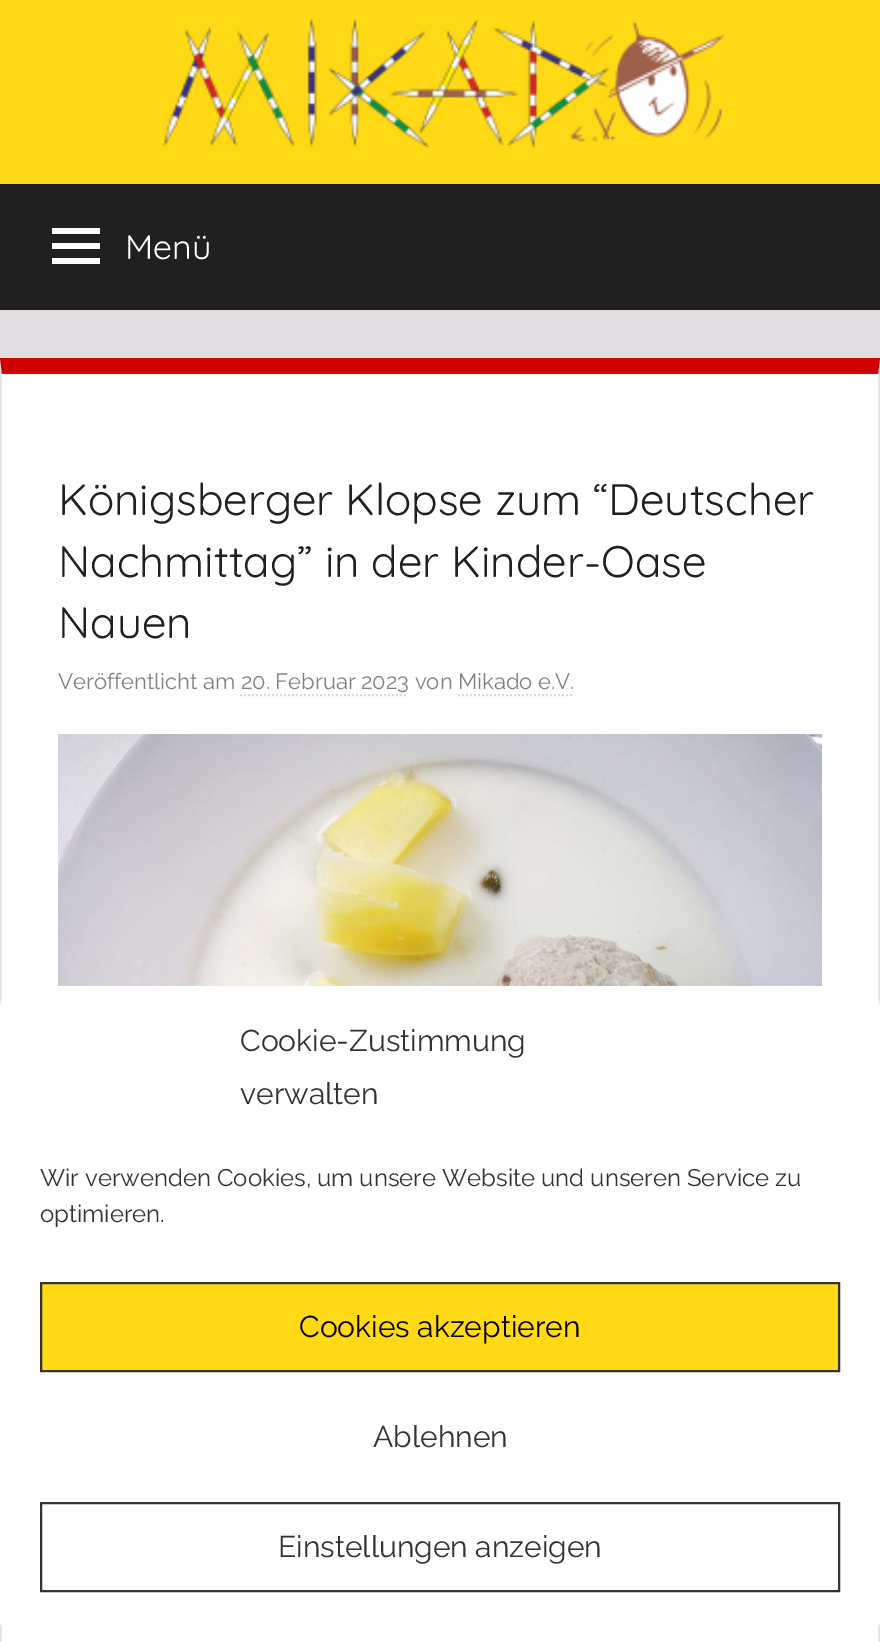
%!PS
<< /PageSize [880 1642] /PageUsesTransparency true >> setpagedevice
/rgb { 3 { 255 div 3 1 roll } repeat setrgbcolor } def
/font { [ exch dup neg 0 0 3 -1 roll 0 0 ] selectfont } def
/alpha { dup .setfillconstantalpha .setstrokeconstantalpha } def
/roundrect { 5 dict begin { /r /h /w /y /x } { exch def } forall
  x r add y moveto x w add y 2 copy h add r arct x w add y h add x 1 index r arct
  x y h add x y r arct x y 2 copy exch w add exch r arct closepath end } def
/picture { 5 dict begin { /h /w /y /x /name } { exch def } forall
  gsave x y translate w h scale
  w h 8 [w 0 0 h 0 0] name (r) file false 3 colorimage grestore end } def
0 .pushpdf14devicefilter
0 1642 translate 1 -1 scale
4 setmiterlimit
225 221 225 rgb
0 0 880 1642 rectfill
255 216 22 rgb
0 0 880 184 rectfill
(img/1.rgb) 162 18 563 130 picture
32 32 32 rgb
0 184 880 126 rectfill
(img/2.rgb) 52 228 48 36 picture
255 255 255 rgb
0 358 880 1284 rectfill
208 0 0 rgb
0 358 moveto 880 358 lineto 878 374 lineto 2 374 lineto closepath fill
0.1 alpha
0 0 0 rgb
880 358 moveto 880 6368 lineto 878 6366 lineto 878 374 lineto closepath fill
0 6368 moveto 0 358 lineto 2 374 lineto 2 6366 lineto closepath fill
1 alpha
217 217 217 rgb
2 setlinewidth
[2 2] 0 setdash
240 695 moveto 408 695 lineto stroke
458 695 moveto 574 695 lineto stroke
(img/3.rgb) 58 734 764 252 picture
255 255 255 rgb
0 986 880 656 24 roundrect fill
255 216 22 rgb
41 1283 moveto 839 1283 lineto 839 1371 lineto 41 1371 lineto closepath gsave fill grestore
51 51 51 rgb
[] 0 setdash
stroke
41 1503 798 88 rectstroke
/Quicksand-Light 34 font
255 255 255 rgb
125 259 moveto (Menü) show
/Quicksand-Light 44 font
32 32 32 rgb
[
  [(Königsberger Klopse zum “Deutscher) 58 515]
  [(Nachmittag” in der Kinder-Oase) 58 577]
  [(Nauen) 58 638]
] { aload pop moveto show } forall
/Raleway-Thin 22 font
128 128 128 rgb
58 689 moveto (Veröffentlicht am 20. Februar 2023 von Mikado e.V.) show
/Raleway-Thin 30 font
51 51 51 rgb
240 1051 moveto (Cookie-Zustimmung) show
240 1104 moveto (verwalten) show
/Raleway-Thin 24 font
40 1186 moveto (Wir verwenden Cookies, um unsere Website und unseren Service zu) show
40 1222 moveto (optimieren.) show
/Raleway-Thin 30 font
0 0 0 rgb
299 1337 moveto (Cookies akzeptieren) show
51 51 51 rgb
373 1447 moveto (Ablehnen) show
278 1557 moveto (Einstellungen anzeigen) show
.poppdf14devicefilter showpage
